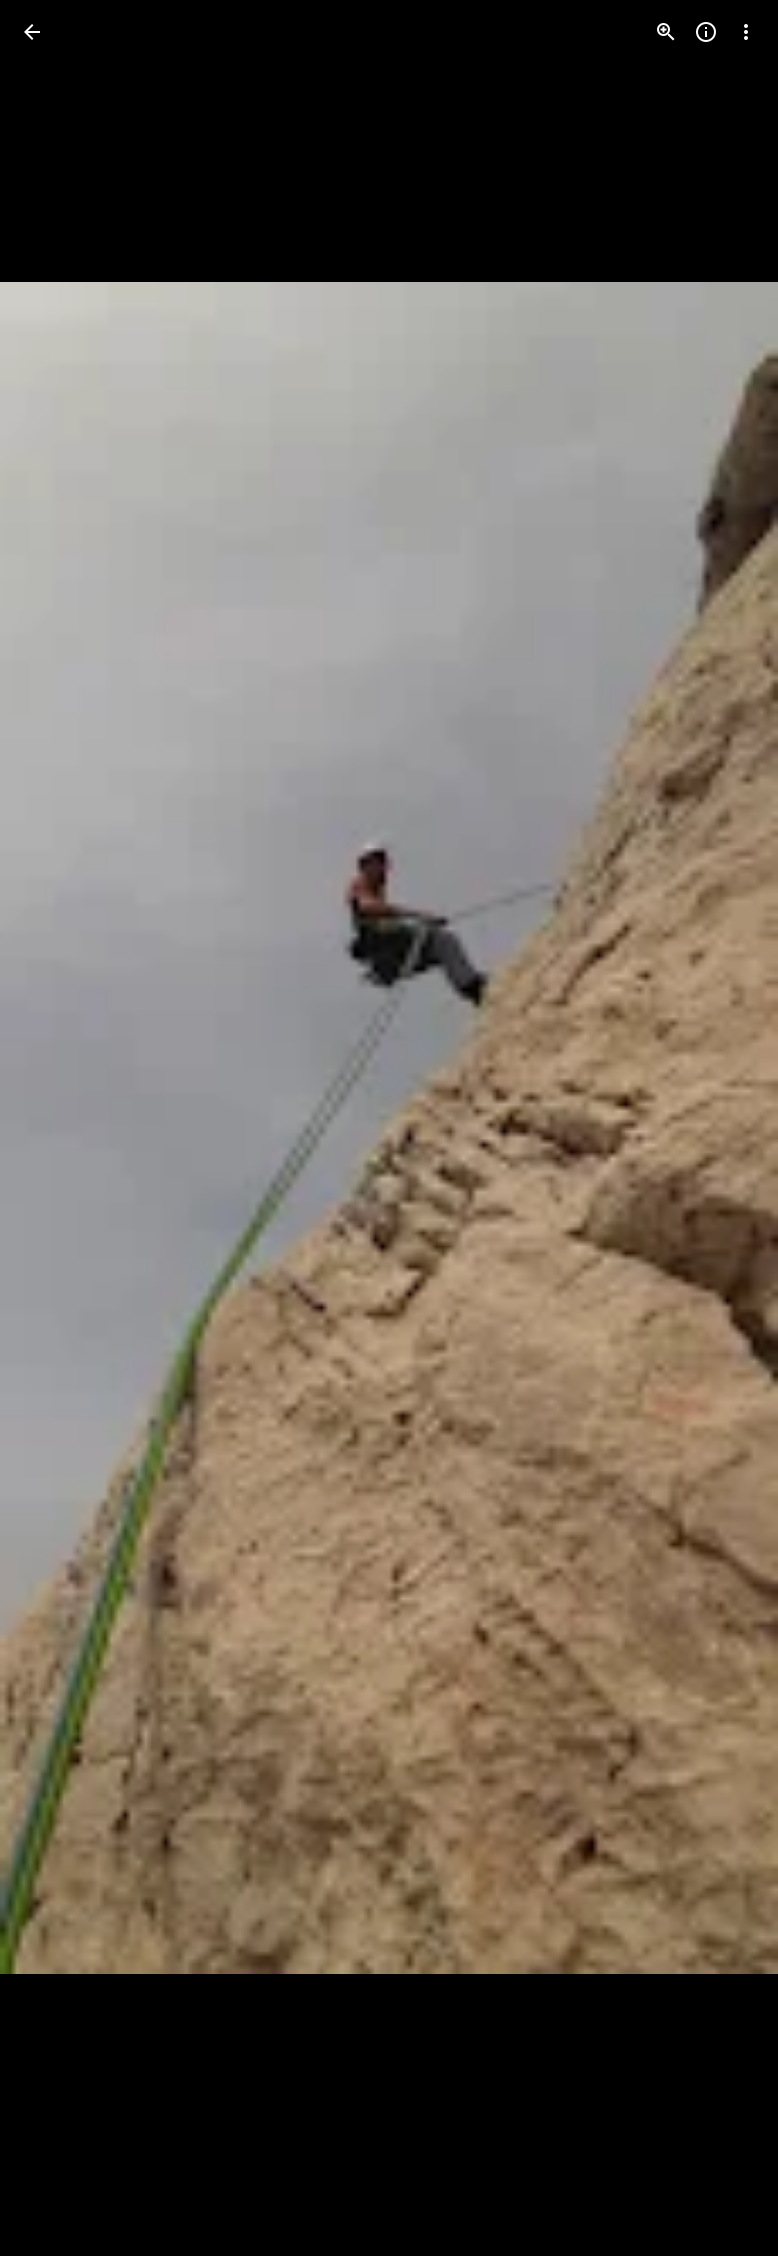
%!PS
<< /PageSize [778 2256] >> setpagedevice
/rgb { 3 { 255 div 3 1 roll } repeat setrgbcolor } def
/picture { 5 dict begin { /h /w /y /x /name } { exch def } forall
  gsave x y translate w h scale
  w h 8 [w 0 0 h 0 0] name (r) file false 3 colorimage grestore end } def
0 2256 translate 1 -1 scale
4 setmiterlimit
0 0 0 rgb
0 0 778 2256 rectfill
(img/1.rgb) 24 24 16 16 picture
(img/2.rgb) 657 23 18 18 picture
(img/3.rgb) 696 22 20 20 picture
(img/4.rgb) 744 24 4 16 picture
(img/5.rgb) 0 282 778 1692 picture
showpage
